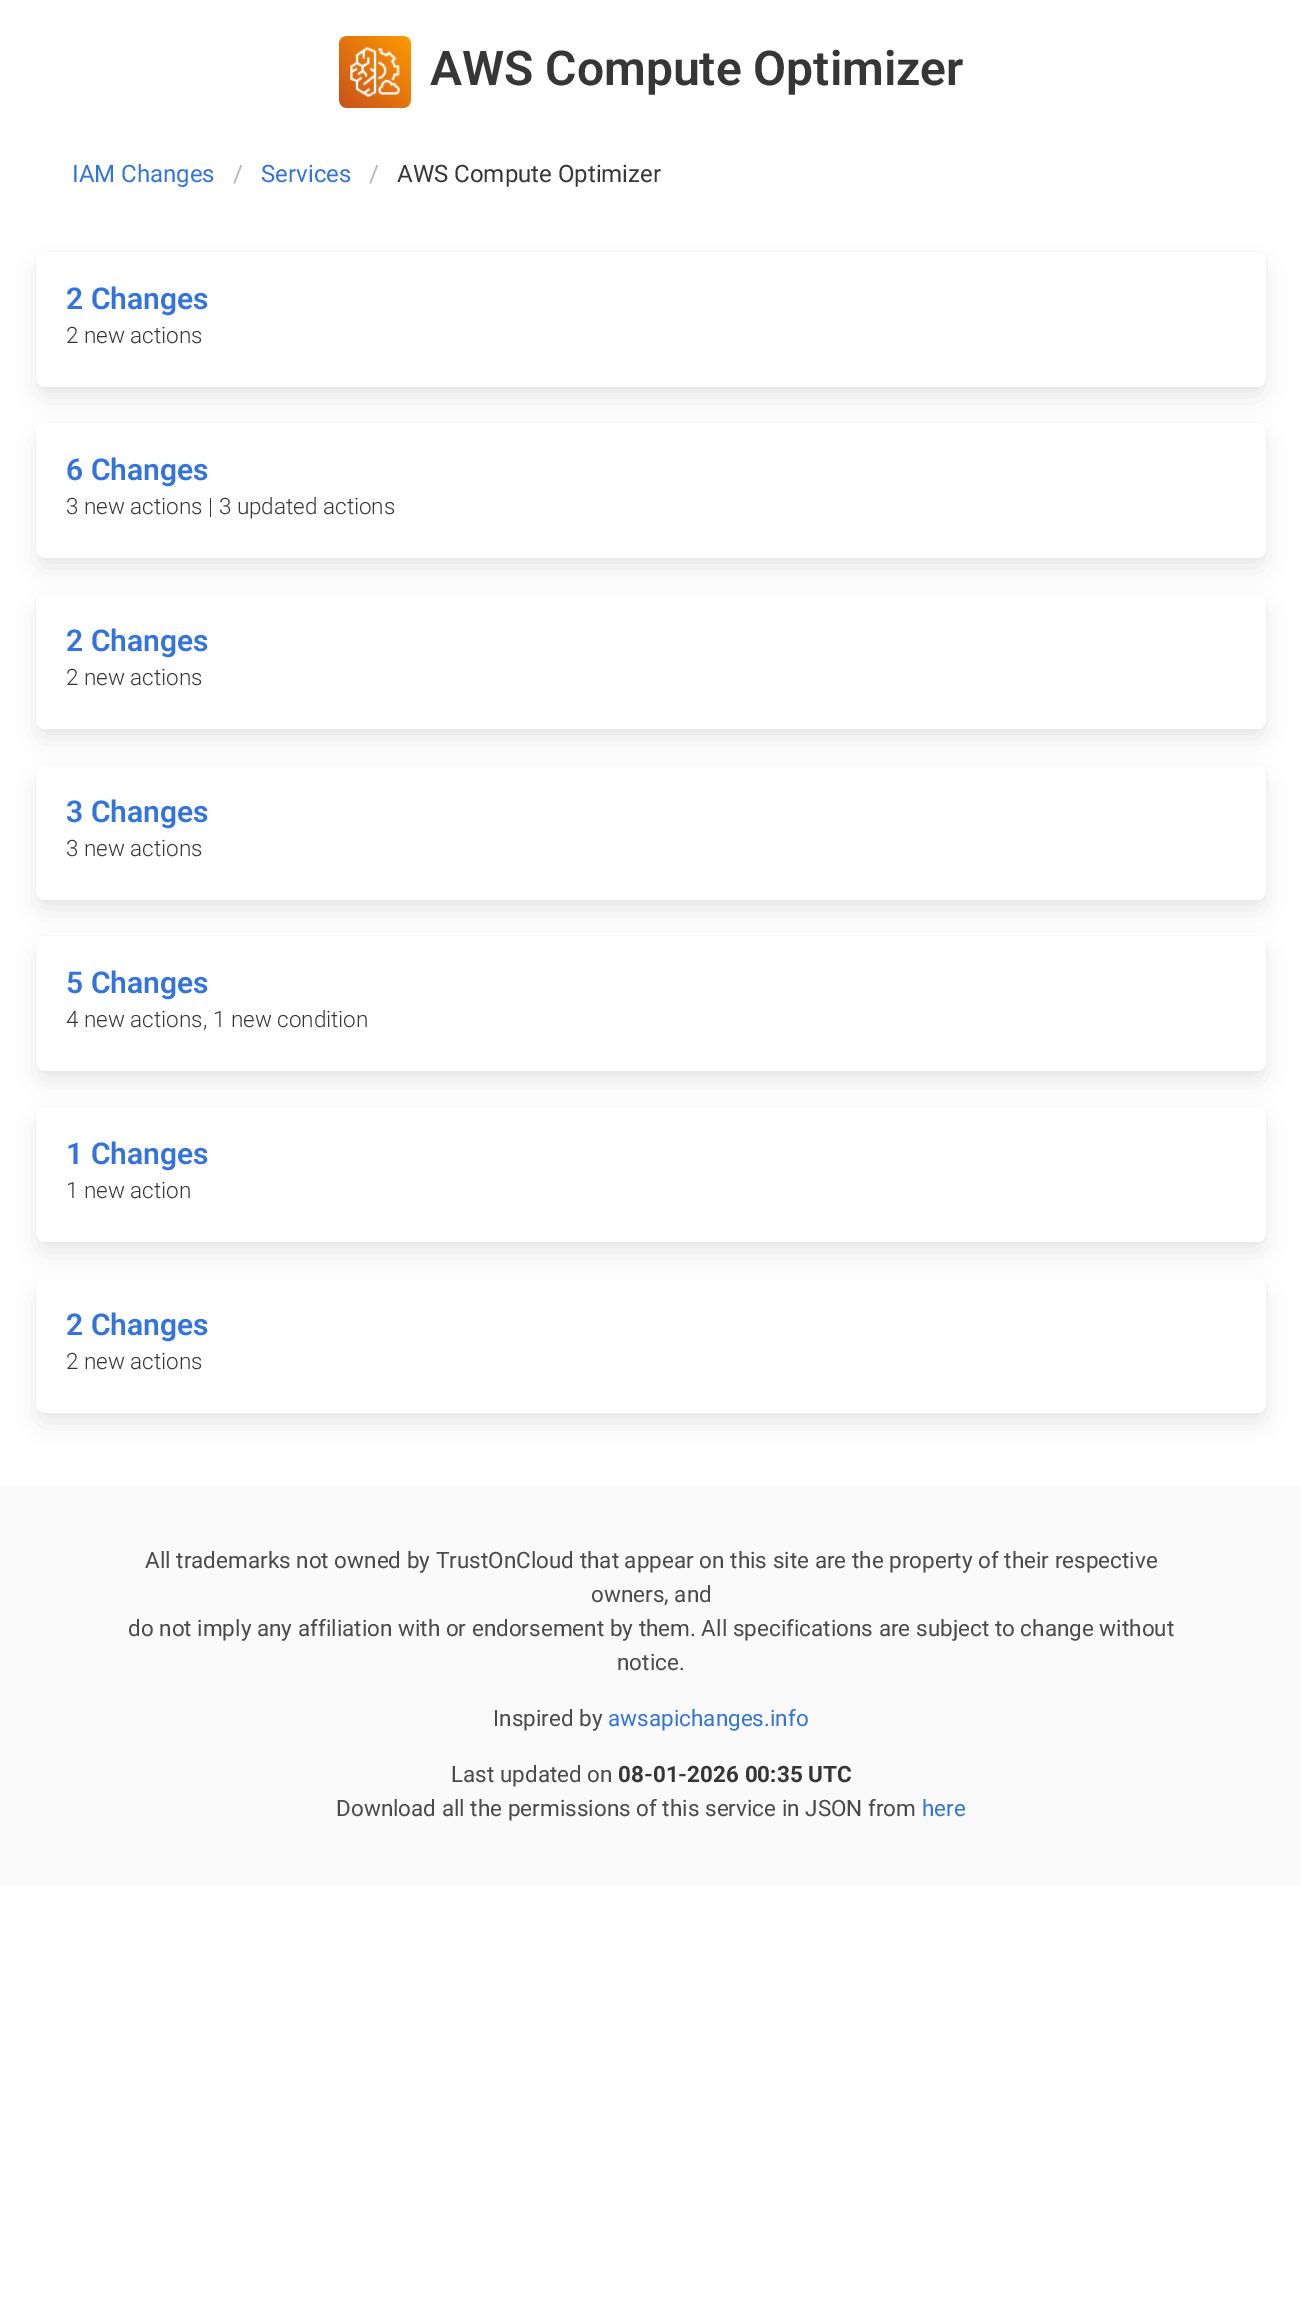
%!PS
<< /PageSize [1301 2312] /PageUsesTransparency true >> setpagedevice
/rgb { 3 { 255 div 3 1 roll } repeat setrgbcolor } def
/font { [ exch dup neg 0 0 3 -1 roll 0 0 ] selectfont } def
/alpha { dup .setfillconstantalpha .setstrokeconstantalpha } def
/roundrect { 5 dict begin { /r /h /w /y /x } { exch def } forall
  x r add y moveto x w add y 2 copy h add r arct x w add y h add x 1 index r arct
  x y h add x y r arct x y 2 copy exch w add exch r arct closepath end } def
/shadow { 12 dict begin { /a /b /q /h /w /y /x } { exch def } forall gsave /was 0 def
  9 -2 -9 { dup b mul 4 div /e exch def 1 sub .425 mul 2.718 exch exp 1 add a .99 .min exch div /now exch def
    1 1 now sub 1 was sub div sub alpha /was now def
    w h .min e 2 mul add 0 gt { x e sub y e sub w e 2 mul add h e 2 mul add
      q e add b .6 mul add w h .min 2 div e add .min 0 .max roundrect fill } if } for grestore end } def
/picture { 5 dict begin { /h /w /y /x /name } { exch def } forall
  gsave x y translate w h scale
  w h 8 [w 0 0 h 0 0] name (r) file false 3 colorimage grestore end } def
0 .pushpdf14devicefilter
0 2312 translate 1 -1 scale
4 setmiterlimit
255 255 255 rgb
0 0 1301 2312 rectfill
(img/1.rgb) 339 36 72 72 picture
250 250 250 rgb
2 setlinewidth
36 252 1231 136 10 roundrect stroke
10 10 10 rgb
39 267 1224 129 6 12 0.1 shadow
255 255 255 rgb
36 252 1230 135 9 roundrect fill
250 250 250 rgb
36 423 1231 136 10 roundrect stroke
10 10 10 rgb
39 438 1224 129 6 12 0.1 shadow
255 255 255 rgb
36 423 1230 135 9 roundrect fill
250 250 250 rgb
36 594 1231 136 10 roundrect stroke
10 10 10 rgb
39 609 1224 129 6 12 0.1 shadow
255 255 255 rgb
36 594 1230 135 9 roundrect fill
250 250 250 rgb
36 765 1231 136 10 roundrect stroke
10 10 10 rgb
39 780 1224 129 6 12 0.1 shadow
255 255 255 rgb
36 765 1230 135 9 roundrect fill
250 250 250 rgb
36 936 1231 136 10 roundrect stroke
10 10 10 rgb
39 951 1224 129 6 12 0.1 shadow
255 255 255 rgb
36 936 1230 135 9 roundrect fill
250 250 250 rgb
36 1107 1231 136 10 roundrect stroke
10 10 10 rgb
39 1122 1224 129 6 12 0.1 shadow
255 255 255 rgb
36 1107 1230 135 9 roundrect fill
250 250 250 rgb
36 1278 1231 136 10 roundrect stroke
10 10 10 rgb
39 1293 1224 129 6 12 0.1 shadow
255 255 255 rgb
36 1278 1230 135 9 roundrect fill
250 250 250 rgb
0 1485 1301 401 rectfill
/Roboto-SemiBold 48 font
54 54 54 rgb
430 85 moveto (AWS Compute Optimizer) show
/Roboto-Regular 24 font
50 115 220 rgb
72 182 moveto (IAM Changes) show
181 181 181 rgb
233 182 moveto (/) show
50 115 220 rgb
261 182 moveto (Services) show
181 181 181 rgb
369 182 moveto (/) show
54 54 54 rgb
397 182 moveto (AWS Compute Optimizer) show
/Roboto-SemiBold 30 font
50 115 220 rgb
66 309 moveto (2 Changes) show
/Roboto-Light 22.5 font
54 54 54 rgb
66 343 moveto (2 new actions) show
/Roboto-SemiBold 30 font
50 115 220 rgb
66 480 moveto (6 Changes) show
/Roboto-Light 22.5 font
54 54 54 rgb
66 514 moveto (3 new actions | 3 updated actions) show
/Roboto-SemiBold 30 font
50 115 220 rgb
66 651 moveto (2 Changes) show
/Roboto-Light 22.5 font
54 54 54 rgb
66 685 moveto (2 new actions) show
/Roboto-SemiBold 30 font
50 115 220 rgb
66 822 moveto (3 Changes) show
/Roboto-Light 22.5 font
54 54 54 rgb
66 856 moveto (3 new actions) show
/Roboto-SemiBold 30 font
50 115 220 rgb
66 993 moveto (5 Changes) show
/Roboto-Light 22.5 font
54 54 54 rgb
66 1027 moveto (4 new actions, 1 new condition) show
/Roboto-SemiBold 30 font
50 115 220 rgb
66 1164 moveto (1 Changes) show
/Roboto-Light 22.5 font
54 54 54 rgb
66 1198 moveto (1 new action) show
/Roboto-SemiBold 30 font
50 115 220 rgb
66 1335 moveto (2 Changes) show
/Roboto-Light 22.5 font
54 54 54 rgb
66 1369 moveto (2 new actions) show
/Roboto-Regular 22.5 font
74 74 74 rgb
[
  [(All trademarks not owned by TrustOnCloud that appear on this site are the property of their respective) 145 1568]
  [(owners, and) 591 1602]
  [(do not imply any affiliation with or endorsement by them. All specifications are subject to change without) 128 1636]
  [(notice.) 617 1670]
  [(Inspired by) 493 1726]
] { aload pop moveto show } forall
50 115 220 rgb
608 1726 moveto (awsapichanges.info) show
74 74 74 rgb
451 1782 moveto (Last updated on) show
/Roboto-Bold 22.5 font
54 54 54 rgb
618 1782 moveto (08-01-2026 00:35 UTC) show
/Roboto-Regular 22.5 font
74 74 74 rgb
336 1816 moveto (Download all the permissions of this service in JSON from) show
50 115 220 rgb
922 1816 moveto (here) show
.poppdf14devicefilter showpage
